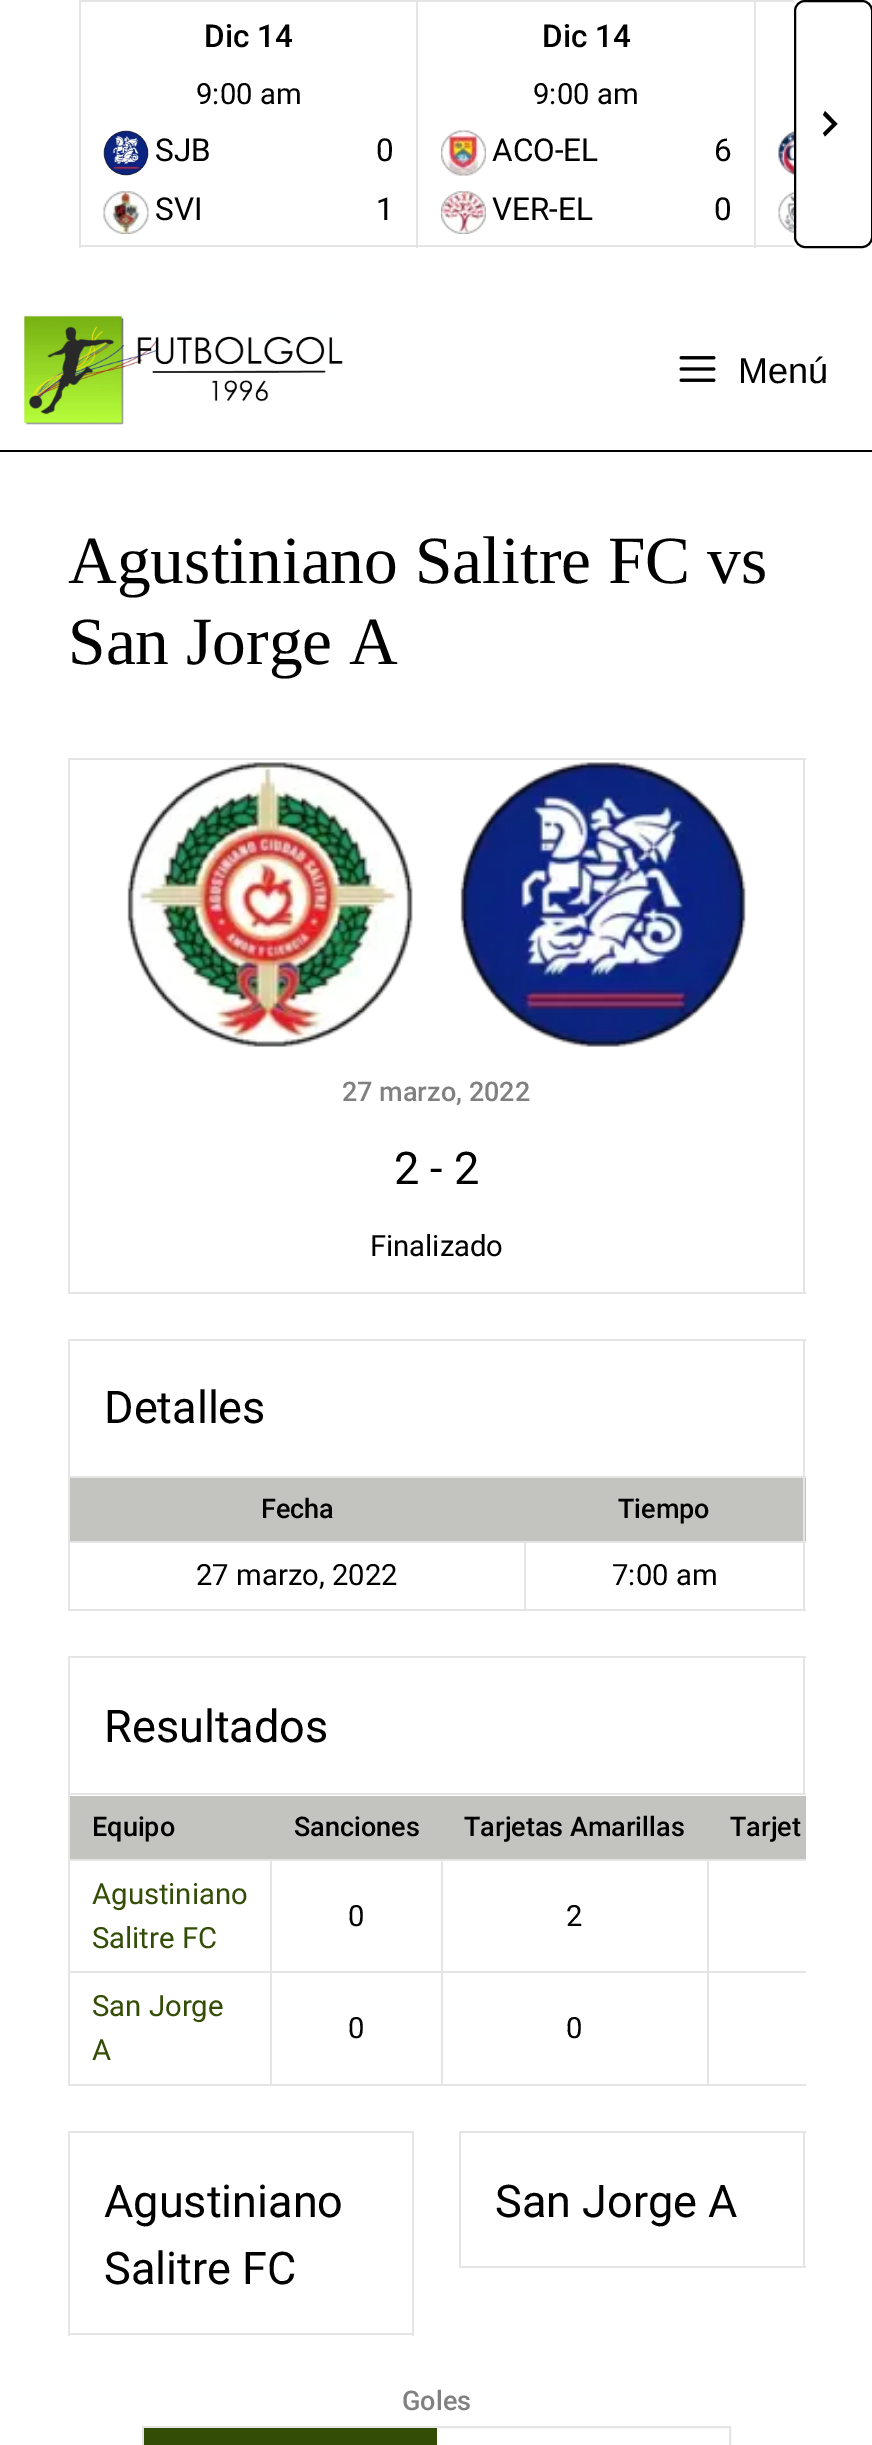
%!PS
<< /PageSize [872 2445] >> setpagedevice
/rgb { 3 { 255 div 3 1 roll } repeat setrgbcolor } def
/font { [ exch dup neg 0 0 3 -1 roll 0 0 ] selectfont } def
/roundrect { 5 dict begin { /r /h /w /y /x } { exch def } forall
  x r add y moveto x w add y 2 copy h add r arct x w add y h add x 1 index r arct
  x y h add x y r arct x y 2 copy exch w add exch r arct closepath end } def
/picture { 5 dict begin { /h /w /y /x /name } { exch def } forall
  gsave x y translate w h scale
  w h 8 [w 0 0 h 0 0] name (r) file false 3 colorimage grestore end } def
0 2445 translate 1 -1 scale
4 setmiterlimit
255 255 255 rgb
0 0 872 2445 rectfill
[
  [79 0 715 2 229 229 229]
  [79 245 715 2 229 229 229]
  [79 0 2 248 229 229 229]
] { aload pop rgb rectfill } forall
(img/1.rgb) 103 130 46 46 picture
(img/2.rgb) 103 191 46 43 picture
416 0 2 248 rectfill
(img/3.rgb) 441 130 45 46 picture
(img/4.rgb) 441 191 45 43 picture
754 0 2 248 rectfill
(img/5.rgb) 778 130 16 46 picture
(img/6.rgb) 778 191 16 43 picture
0 0 0 rgb
2 setlinewidth
795 1 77 246 10 roundrect stroke
823 133 moveto 832 124 lineto 823 115 lineto 825 111 lineto 837.5 124 lineto 825 136.5 lineto closepath fill
0 450 872 2 rectfill
(img/7.rgb) 23 315 320 110 picture
(img/8.rgb) 679 356 37 26 picture
[
  [68 758 738 2 229 229 229]
  [803 758 2 536 229 229 229]
  [68 1292 738 2 229 229 229]
  [68 758 2 536 229 229 229]
] { aload pop rgb rectfill } forall
(img/9.rgb) 127 762 286 285 picture
(img/10.rgb) 460 762 286 285 picture
[
  [68 1339 738 2 229 229 229]
  [803 1339 2 137 229 229 229]
  [68 1339 2 137 229 229 229]
  [68 1476 738 2 229 229 229]
  [70 1478 736 63 195 196 191]
  [803 1476 2 135 229 229 229]
  [68 1609 738 2 229 229 229]
  [68 1476 2 135 229 229 229]
  [524 1541 282 2 229 229 229]
  [524 1541 2 70 229 229 229]
  [68 1541 459 2 229 229 229]
  [68 1656 738 2 229 229 229]
  [803 1656 2 137 229 229 229]
  [68 1656 2 137 229 229 229]
  [68 1793 738 2 229 229 229]
  [68 2084 738 2 229 229 229]
  [68 1793 2 293 229 229 229]
  [70 1796 736 63 195 196 191]
  [707 1859 99 2 229 229 229]
  [707 1971 99 2 229 229 229]
  [707 1971 2 115 229 229 229]
  [441 1971 268 2 229 229 229]
  [707 1859 2 114 229 229 229]
  [441 1859 268 2 229 229 229]
  [441 1971 2 115 229 229 229]
  [270 1971 173 2 229 229 229]
  [441 1859 2 114 229 229 229]
  [270 1859 173 2 229 229 229]
  [270 1971 2 115 229 229 229]
  [68 1971 204 2 229 229 229]
  [270 1859 2 114 229 229 229]
  [68 1859 204 2 229 229 229]
  [68 2131 346 2 229 229 229]
  [412 2131 2 205 229 229 229]
  [68 2131 2 205 229 229 229]
  [68 2333 346 2 229 229 229]
  [459 2131 347 2 229 229 229]
  [803 2131 2 137 229 229 229]
  [459 2131 2 137 229 229 229]
  [459 2266 347 2 229 229 229]
] { aload pop rgb rectfill } forall
143 2427 587 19 rectstroke
51 76 6 rgb
144 2428 293 17 rectfill
/Roboto-Medium 31.5 font
0 0 0 rgb
204 47 moveto (Dic 14) show
/Roboto-Regular 29.25 font
196 104 moveto (9:00 am) show
/Roboto-Regular 31.5 font
[
  [(SJB) 155 161]
  [(0) 376 161]
  [(SVI) 155 220]
  [(1) 376 220]
] { aload pop moveto show } forall
/Roboto-Medium 31.5 font
542 47 moveto (Dic 14) show
/Roboto-Regular 29.25 font
533 104 moveto (9:00 am) show
/Roboto-Regular 31.5 font
[
  [(ACO-EL) 492 161]
  [(6) 714 161]
  [(VER-EL) 492 220]
  [(0) 714 220]
] { aload pop moveto show } forall
/LiberationSans-Regular 36 font
738 383 moveto (Menú) show
/LiberationSerif-Regular 67.5 font
68 583 moveto (Agustiniano Salitre FC vs) show
68 664 moveto (San Jorge A) show
/Roboto-Medium 27 font
128 128 128 rgb
342 1101 moveto (27 marzo, 2022) show
/Roboto-Regular 45 font
0 0 0 rgb
394 1184 moveto (2 - 2) show
/Roboto-Regular 29.25 font
370 1256 moveto (Finalizado) show
/Roboto-Regular 45 font
104 1423 moveto (Detalles) show
/Roboto-Medium 27 font
261 1518 moveto (Fecha) show
618 1518 moveto (Tiempo) show
/Roboto-Regular 29.25 font
196 1585 moveto (27 marzo, 2022) show
612 1585 moveto (7:00 am) show
/Roboto-Regular 45 font
104 1742 moveto (Resultados) show
/Roboto-Medium 27 font
[
  [(Equipo) 92 1836]
  [(Sanciones) 294 1836]
  [(Tarjetas Amarillas) 464 1836]
  [(Tarjet) 730 1836]
] { aload pop moveto show } forall
/Roboto-Regular 29.25 font
51 76 6 rgb
92 1904 moveto (Agustiniano) show
92 1948 moveto (Salitre FC) show
0 0 0 rgb
348 1926 moveto (0) show
566 1926 moveto (2) show
51 76 6 rgb
92 2016 moveto (San Jorge) show
92 2060 moveto (A) show
0 0 0 rgb
348 2038 moveto (0) show
566 2038 moveto (0) show
/Roboto-Regular 45 font
[
  [(Agustiniano) 104 2217]
  [(Salitre FC) 104 2284]
  [(San Jorge A) 495 2217]
] { aload pop moveto show } forall
/Roboto-Medium 27 font
128 128 128 rgb
402 2410 moveto (Goles) show
showpage
